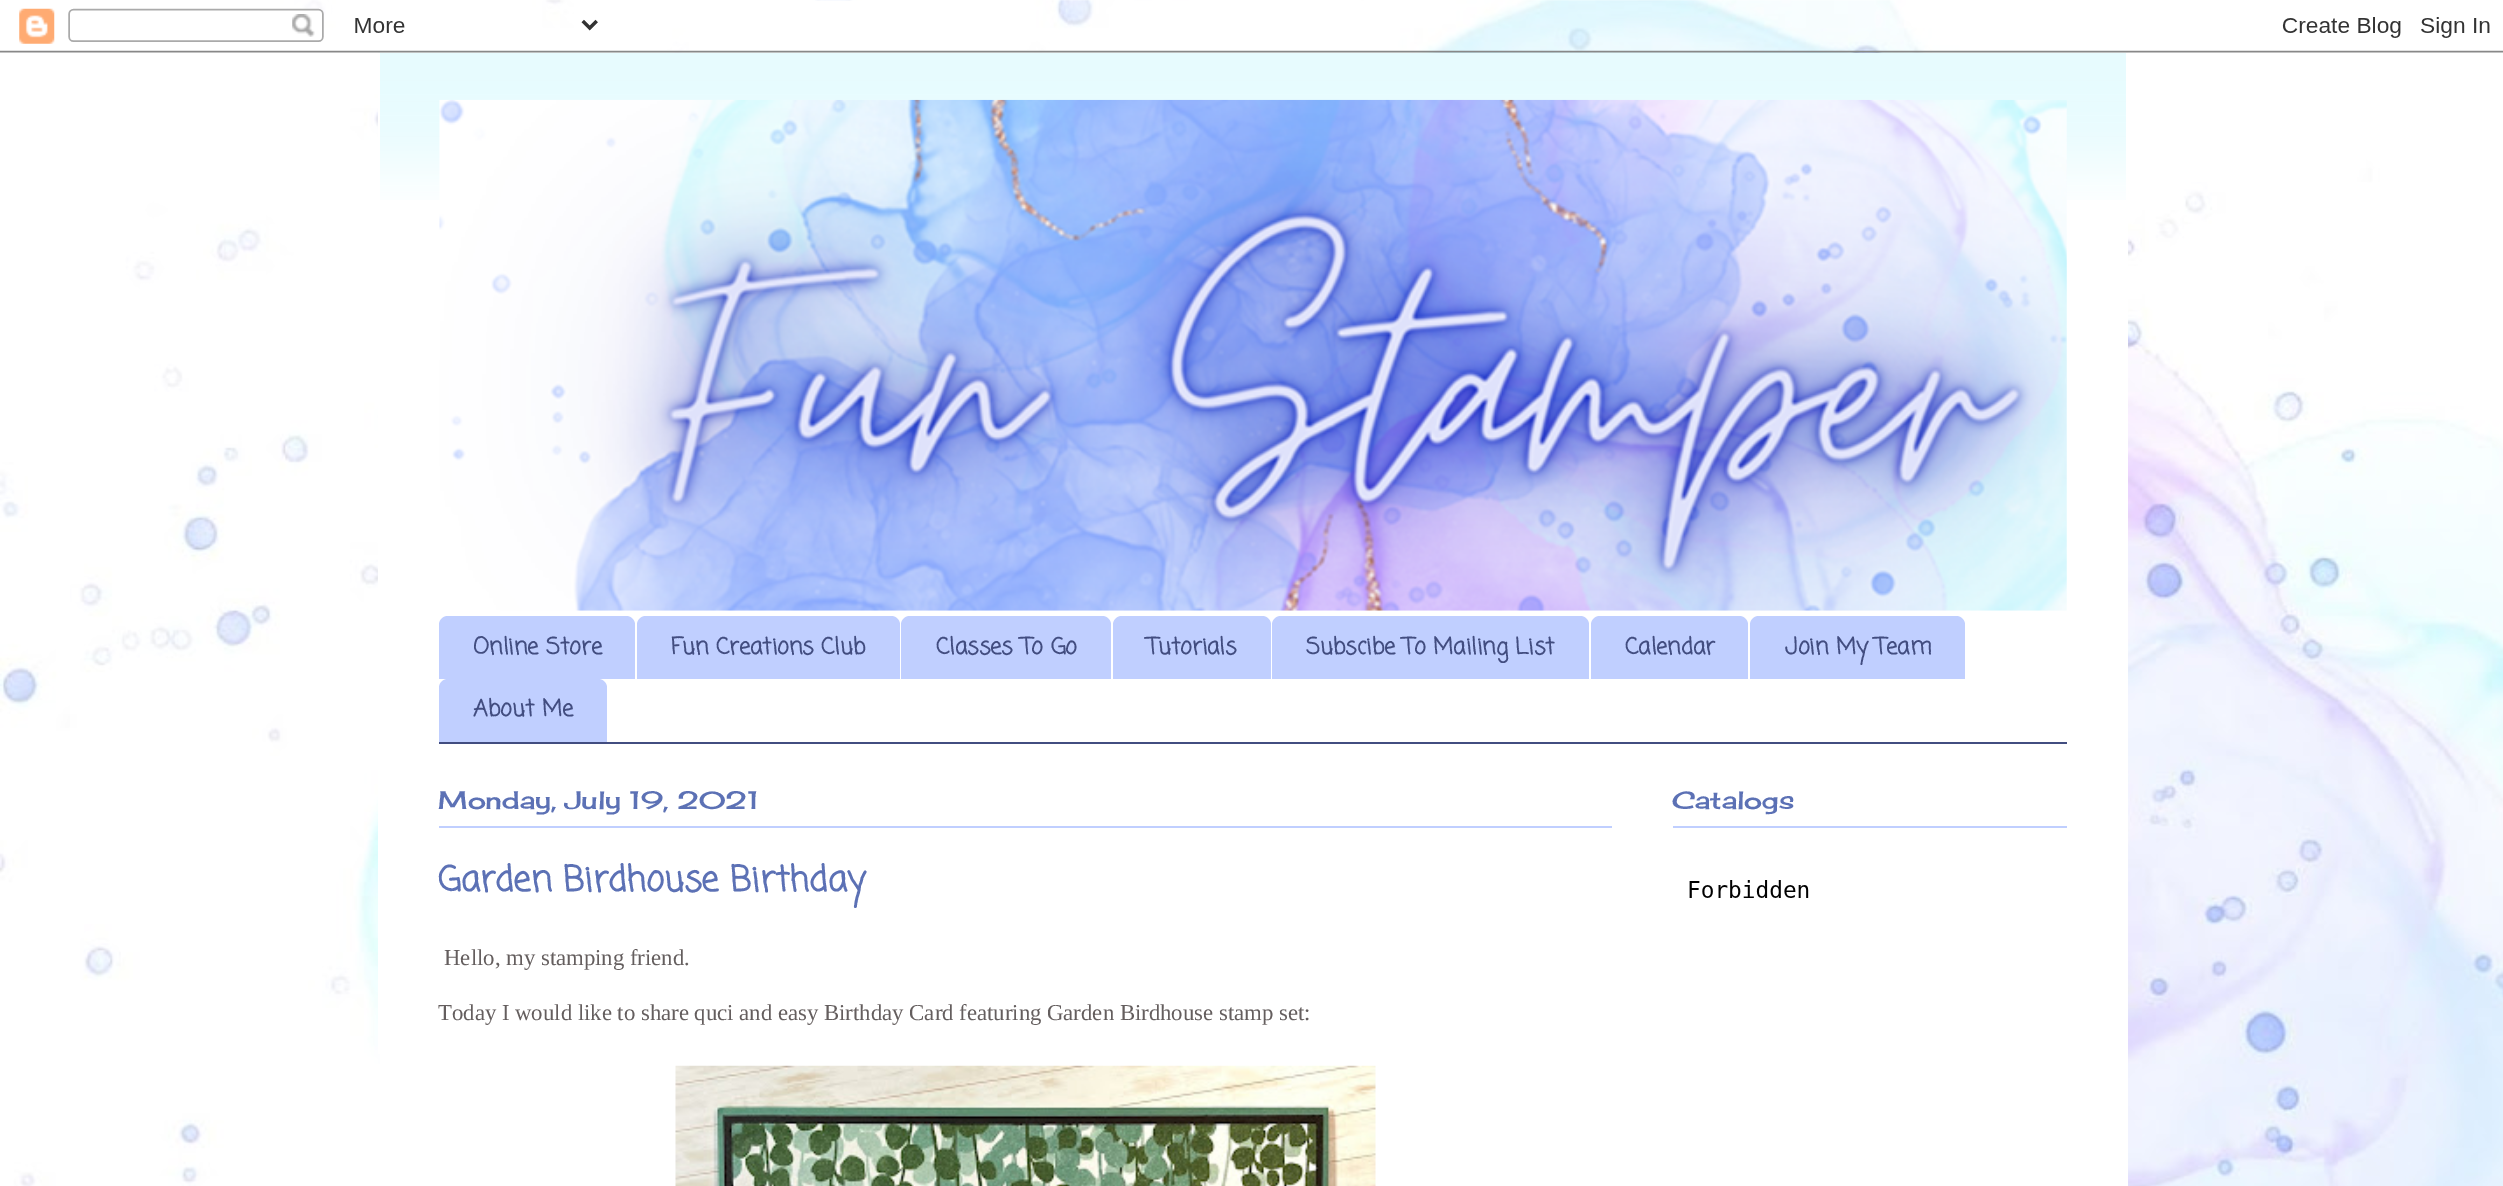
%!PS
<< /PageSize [2503 1186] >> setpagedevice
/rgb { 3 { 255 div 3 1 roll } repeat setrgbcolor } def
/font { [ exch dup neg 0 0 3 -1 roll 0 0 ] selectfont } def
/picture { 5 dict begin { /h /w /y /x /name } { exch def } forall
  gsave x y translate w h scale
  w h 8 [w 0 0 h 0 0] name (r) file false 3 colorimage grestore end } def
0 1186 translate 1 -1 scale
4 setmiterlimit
255 255 255 rgb
0 0 2503 1186 rectfill
(img/1.rgb) 0 0 2503 1186 picture
380 53 1746 1133 rectfill
(img/3.rgb) 378 52 1750 148 picture
(img/2.rgb) 0 0 2503 53 picture
2126 53 2 1133 rectfill
378 53 2 1001 rectfill
(img/4.rgb) 439 99 1628 512 picture
66 77 128 rgb
439 742 1628 2 rectfill
192 207 255 rgb
448 616 moveto 626 616 lineto 631 616 635 620 635 625 curveto 635 679 lineto 439 679 lineto 439 625 lineto 439 620 443 616 448 616 curveto closepath fill
646 616 moveto 891 616 lineto 896 616 900 620 900 625 curveto 900 679 lineto 637 679 lineto 637 625 lineto 637 620 641 616 646 616 curveto closepath fill
910 616 moveto 1102 616 lineto 1107 616 1111 620 1111 625 curveto 1111 679 lineto 901 679 lineto 901 625 lineto 901 620 905 616 910 616 curveto closepath fill
1122 616 moveto 1262 616 lineto 1267 616 1271 620 1271 625 curveto 1271 679 lineto 1113 679 lineto 1113 625 lineto 1113 620 1117 616 1122 616 curveto closepath fill
1281 616 moveto 1580 616 lineto 1585 616 1589 620 1589 625 curveto 1589 679 lineto 1272 679 lineto 1272 625 lineto 1272 620 1276 616 1281 616 curveto closepath fill
1600 616 moveto 1739 616 lineto 1744 616 1748 620 1748 625 curveto 1748 679 lineto 1591 679 lineto 1591 625 lineto 1591 620 1595 616 1600 616 curveto closepath fill
1759 616 moveto 1956 616 lineto 1961 616 1965 620 1965 625 curveto 1965 679 lineto 1750 679 lineto 1750 625 lineto 1750 620 1754 616 1759 616 curveto closepath fill
448 679 moveto 598 679 lineto 603 679 607 683 607 688 curveto 607 742 lineto 439 742 lineto 439 688 lineto 439 683 443 679 448 679 curveto closepath fill
439 826 1173 2 rectfill
(img/5.rgb) 675 1065 701 121 picture
1673 826 394 2 rectfill
(img/6.rgb) 1689 880 120 18 picture
/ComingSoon-Bold 22.75 font
66 77 128 rgb
[
  [(Online Store) 473 654]
  [(Fun Creations Club) 671 654]
  [(Classes To Go) 936 654]
  [(Tutorials) 1147 654]
  [(Subscibe To Mailing List) 1306 654]
  [(Calendar) 1625 654]
  [(Join My Team) 1785 654]
  [(About Me) 473 716]
] { aload pop moveto show } forall
/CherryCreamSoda-Regular 24.5 font
92 113 181 rgb
438 809 moveto (Monday, July 19, 2021) show
/ComingSoon-Bold 35 font
438 891 moveto (Garden Birdhouse Birthday) show
/LiberationSerif-Regular 22.75 font
100 94 94 rgb
444 965 moveto (Hello, my stamping friend.) show
438 1020 moveto (Today I would like to share quci and easy Birthday Card featuring Garden Birdhouse stamp set:) show
/CherryCreamSoda-Regular 24.5 font
92 113 181 rgb
1672 809 moveto (Catalogs) show
showpage
